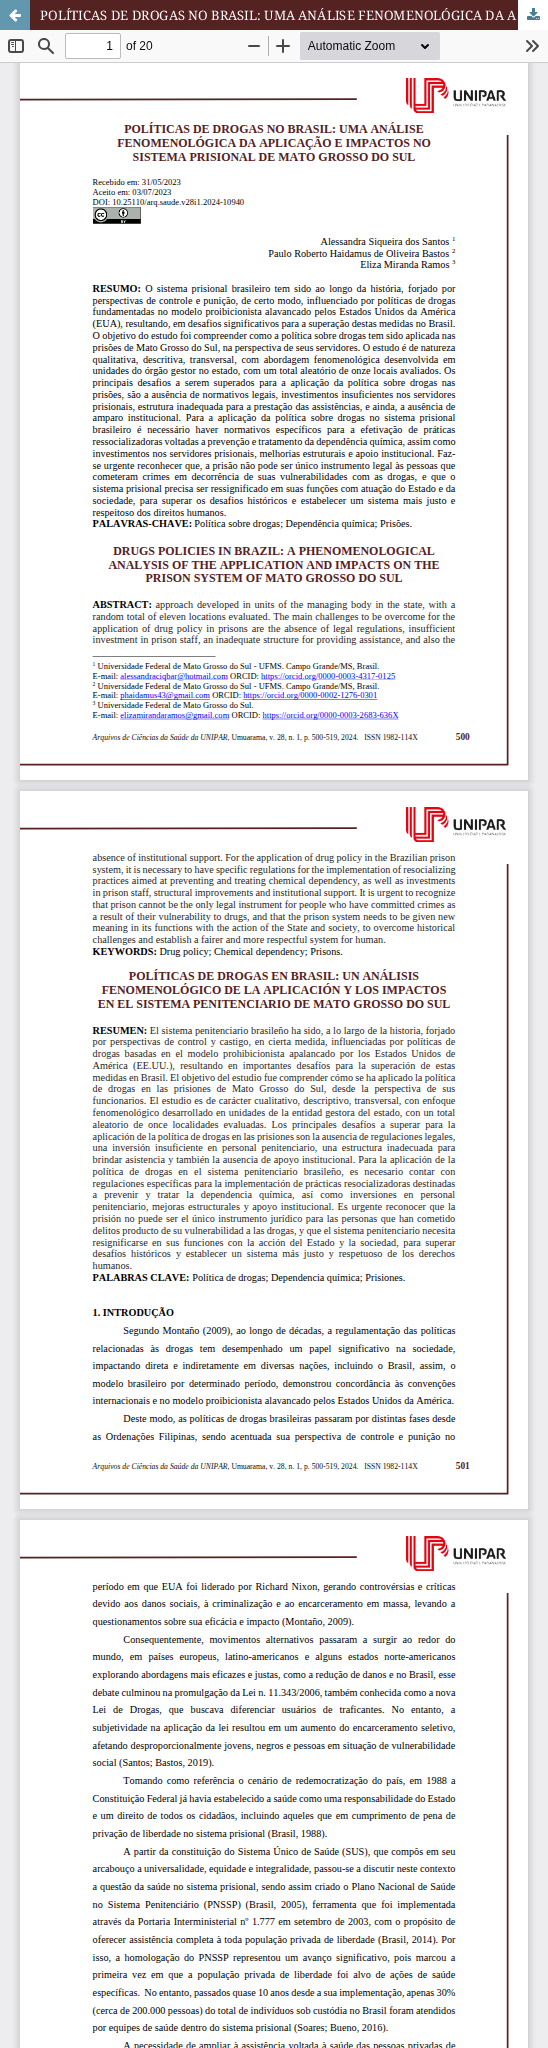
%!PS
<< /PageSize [548 2048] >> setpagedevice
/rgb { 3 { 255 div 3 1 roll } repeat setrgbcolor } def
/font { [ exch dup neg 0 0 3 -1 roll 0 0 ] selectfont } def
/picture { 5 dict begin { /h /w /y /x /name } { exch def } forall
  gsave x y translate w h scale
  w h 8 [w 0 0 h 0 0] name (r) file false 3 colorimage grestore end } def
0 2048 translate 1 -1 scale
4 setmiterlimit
255 255 255 rgb
0 0 548 2048 rectfill
85 34 34 rgb
30 0 488 30 rectfill
98 152 174 rgb
0 0 30 30 rectfill
(img/1.rgb) 9 9 12 13 picture
(img/2.rgb) 527 8 13 12 picture
(img/3.rgb) 0 30 548 2018 picture
/NotoSerif-Regular 13 font
255 255 255 rgb
40 20 moveto (POLÍTICAS DE DROGAS NO BRASIL: UMA ANÁLISE FENOMENOLÓGICA DA A) show
showpage
